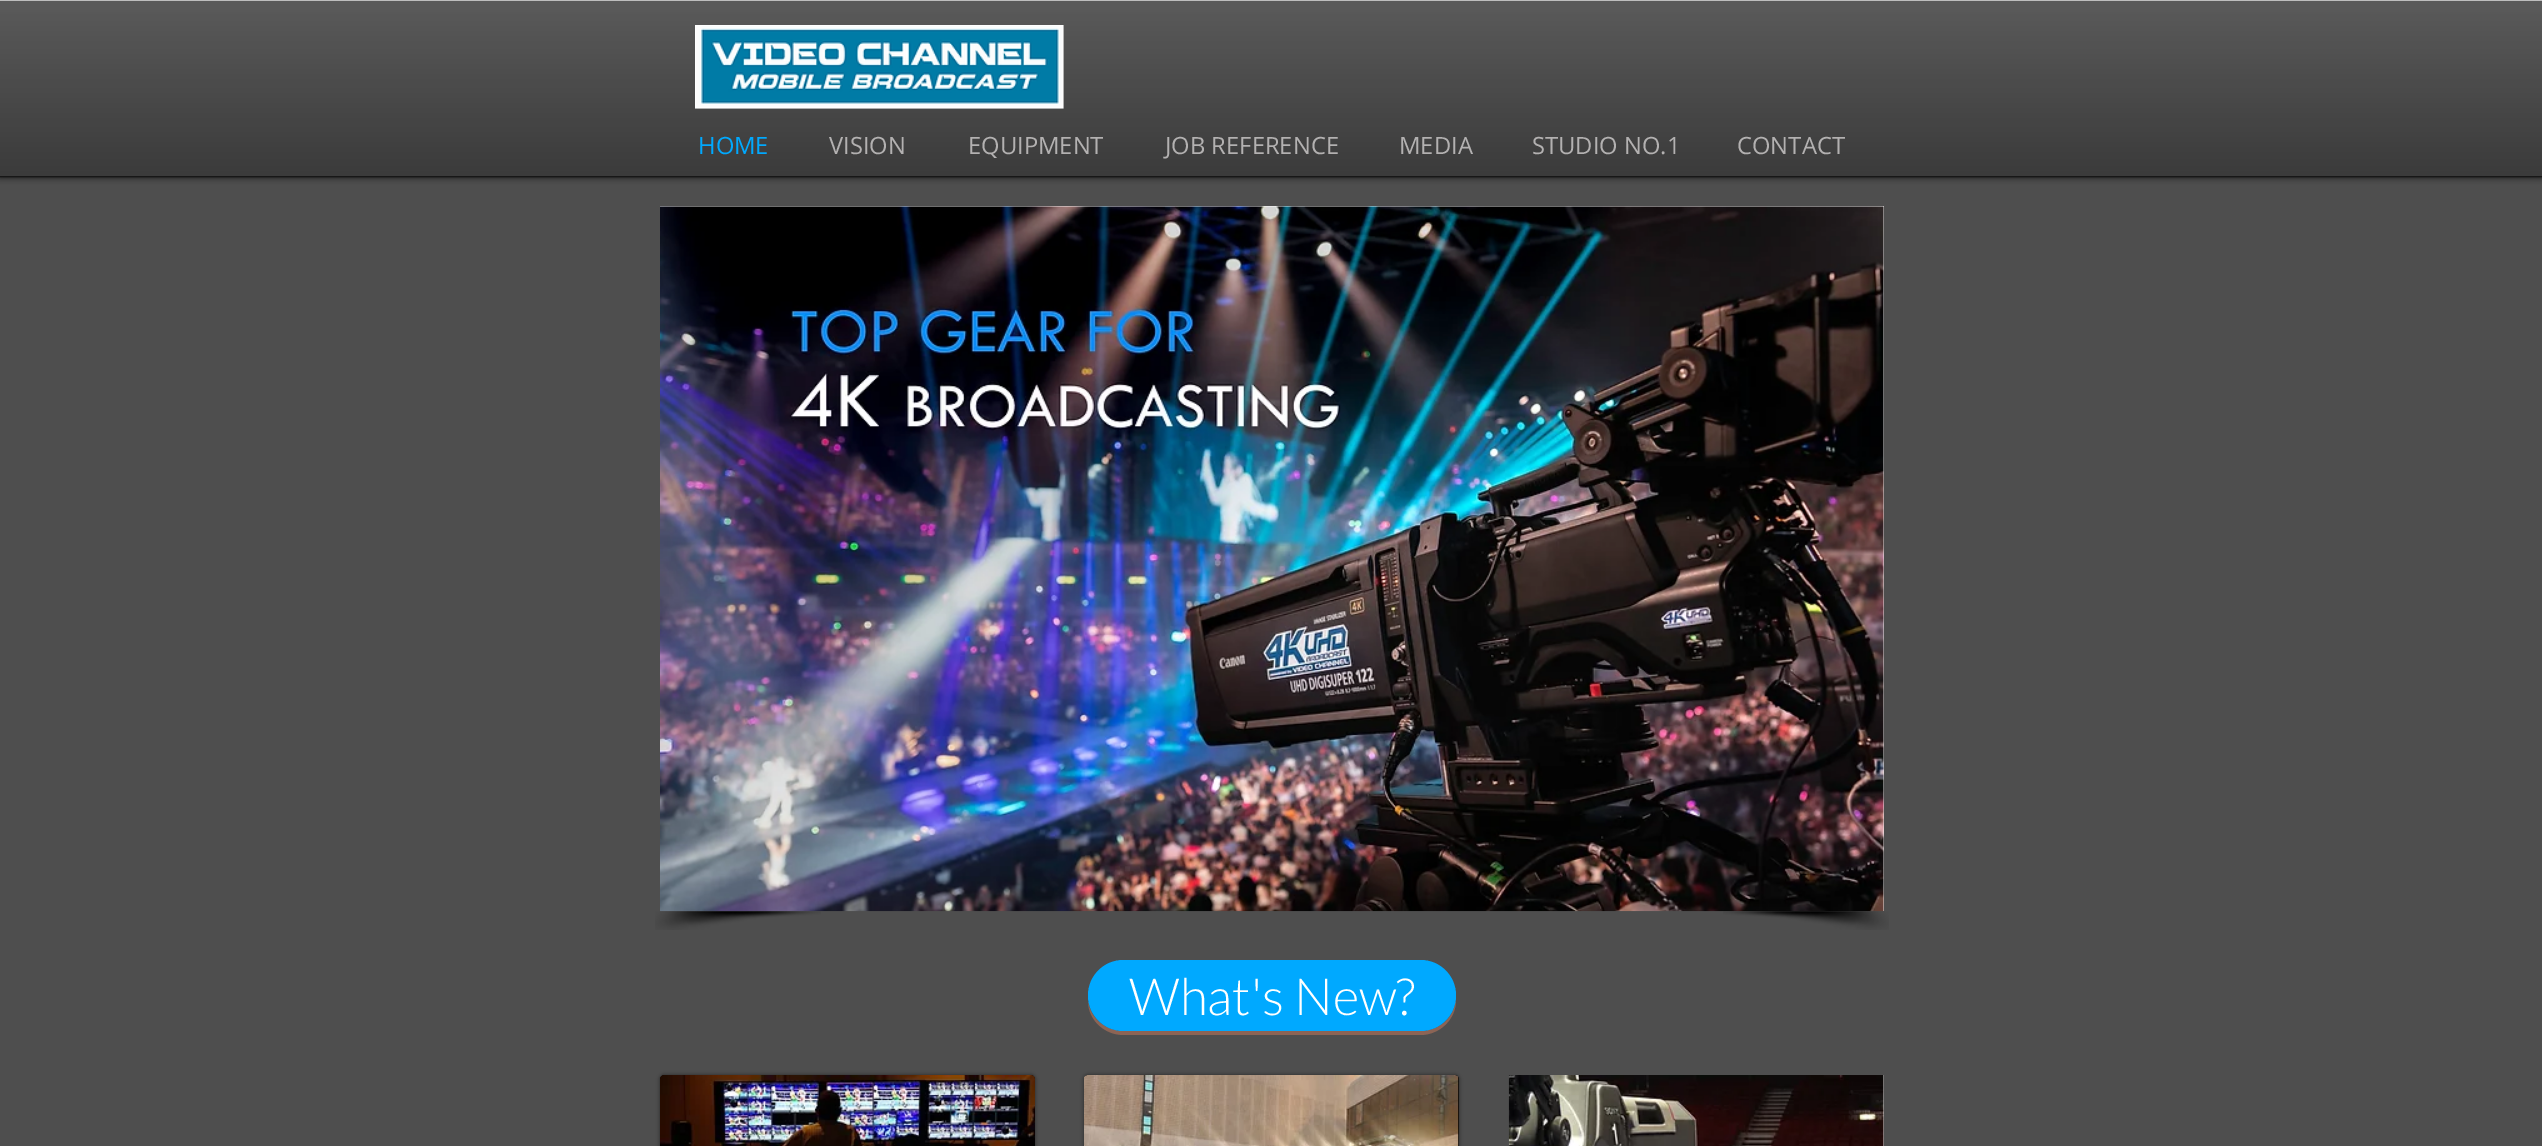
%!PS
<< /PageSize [2542 1146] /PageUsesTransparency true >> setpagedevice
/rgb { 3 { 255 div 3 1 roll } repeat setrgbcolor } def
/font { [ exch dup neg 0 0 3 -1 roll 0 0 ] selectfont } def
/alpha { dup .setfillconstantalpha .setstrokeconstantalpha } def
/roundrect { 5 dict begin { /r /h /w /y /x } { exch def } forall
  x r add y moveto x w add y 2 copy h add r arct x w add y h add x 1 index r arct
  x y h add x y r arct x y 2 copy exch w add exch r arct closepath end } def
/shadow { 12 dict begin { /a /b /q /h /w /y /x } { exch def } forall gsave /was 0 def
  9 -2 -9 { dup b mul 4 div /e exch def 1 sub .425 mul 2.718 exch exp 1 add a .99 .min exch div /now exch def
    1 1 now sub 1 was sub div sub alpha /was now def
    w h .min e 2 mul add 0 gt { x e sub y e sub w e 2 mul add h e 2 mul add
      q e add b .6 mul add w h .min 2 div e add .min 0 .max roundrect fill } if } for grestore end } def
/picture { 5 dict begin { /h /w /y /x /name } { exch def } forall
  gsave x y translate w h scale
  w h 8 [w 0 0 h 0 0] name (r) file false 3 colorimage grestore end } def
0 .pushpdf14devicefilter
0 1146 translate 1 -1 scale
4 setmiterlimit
78 78 78 rgb
0 0 2542 1146 rectfill
gsave
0 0 moveto 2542 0 lineto 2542 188 lineto 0 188 lineto closepath 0 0 moveto 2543 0 lineto 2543 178 lineto 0 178 lineto closepath eoclip newpath
0 0 0 rgb
0 0 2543 178 0 3 0.6 shadow
grestore
0.58 alpha
0 0 0 rgb
0 1 2542 177 rectfill
1 alpha
(img/1.rgb) 0 1 2542 177 picture
23 23 23 rgb
0 176 2542 1 rectfill
189 189 189 rgb
0 0 2542 1 rectfill
(img/2.rgb) 695 25 369 84 picture
255 255 255 rgb
660 206 1224 705 rectfill
(img/4.rgb) 655 911 166 19 picture
(img/3.rgb) 660 206 1224 706 picture
(img/5.rgb) 1723 911 166 19 picture
140 100 85 rgb
1088 1002 moveto 1089 1021 1105 1035 1124 1035 curveto 1420 1035 lineto 1440 1035 1456 1019 1456 1000 curveto 1454 1018 1439 1031 1421 1031 curveto 1123 1031 lineto 1106 1031 1091 1019 1088 1002 curveto closepath fill
0 169 255 rgb
1088 960 368 71 35.5 roundrect fill
0 0 0 rgb
660 1075 375 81 4 2 0.5 shadow
(img/6.rgb) 660 1075 375 71 picture
1084 1075 375 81 4 2 0.5 shadow
1084 1075 375 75 4 roundrect fill
(img/7.rgb) 1084 1075 375 71 picture
255 255 255 rgb
1883 1075 1 71 rectfill
(img/8.rgb) 1508 1075 376 71 picture
/OpenSans-Regular 23.75 font
0 169 255 rgb
698 154 moveto (HOME) show
179 177 177 rgb
[
  [(VISION) 829 154]
  [(EQUIPMENT) 968 154]
  [(JOB REFERENCE) 1165 154]
  [(MEDIA) 1399 154]
  [(STUDIO NO.1) 1532 154]
  [(CONTACT) 1737 154]
] { aload pop moveto show } forall
/Lato-Light 51.25 font
255 255 255 rgb
1129 1015 moveto (What's New?) show
.poppdf14devicefilter showpage
